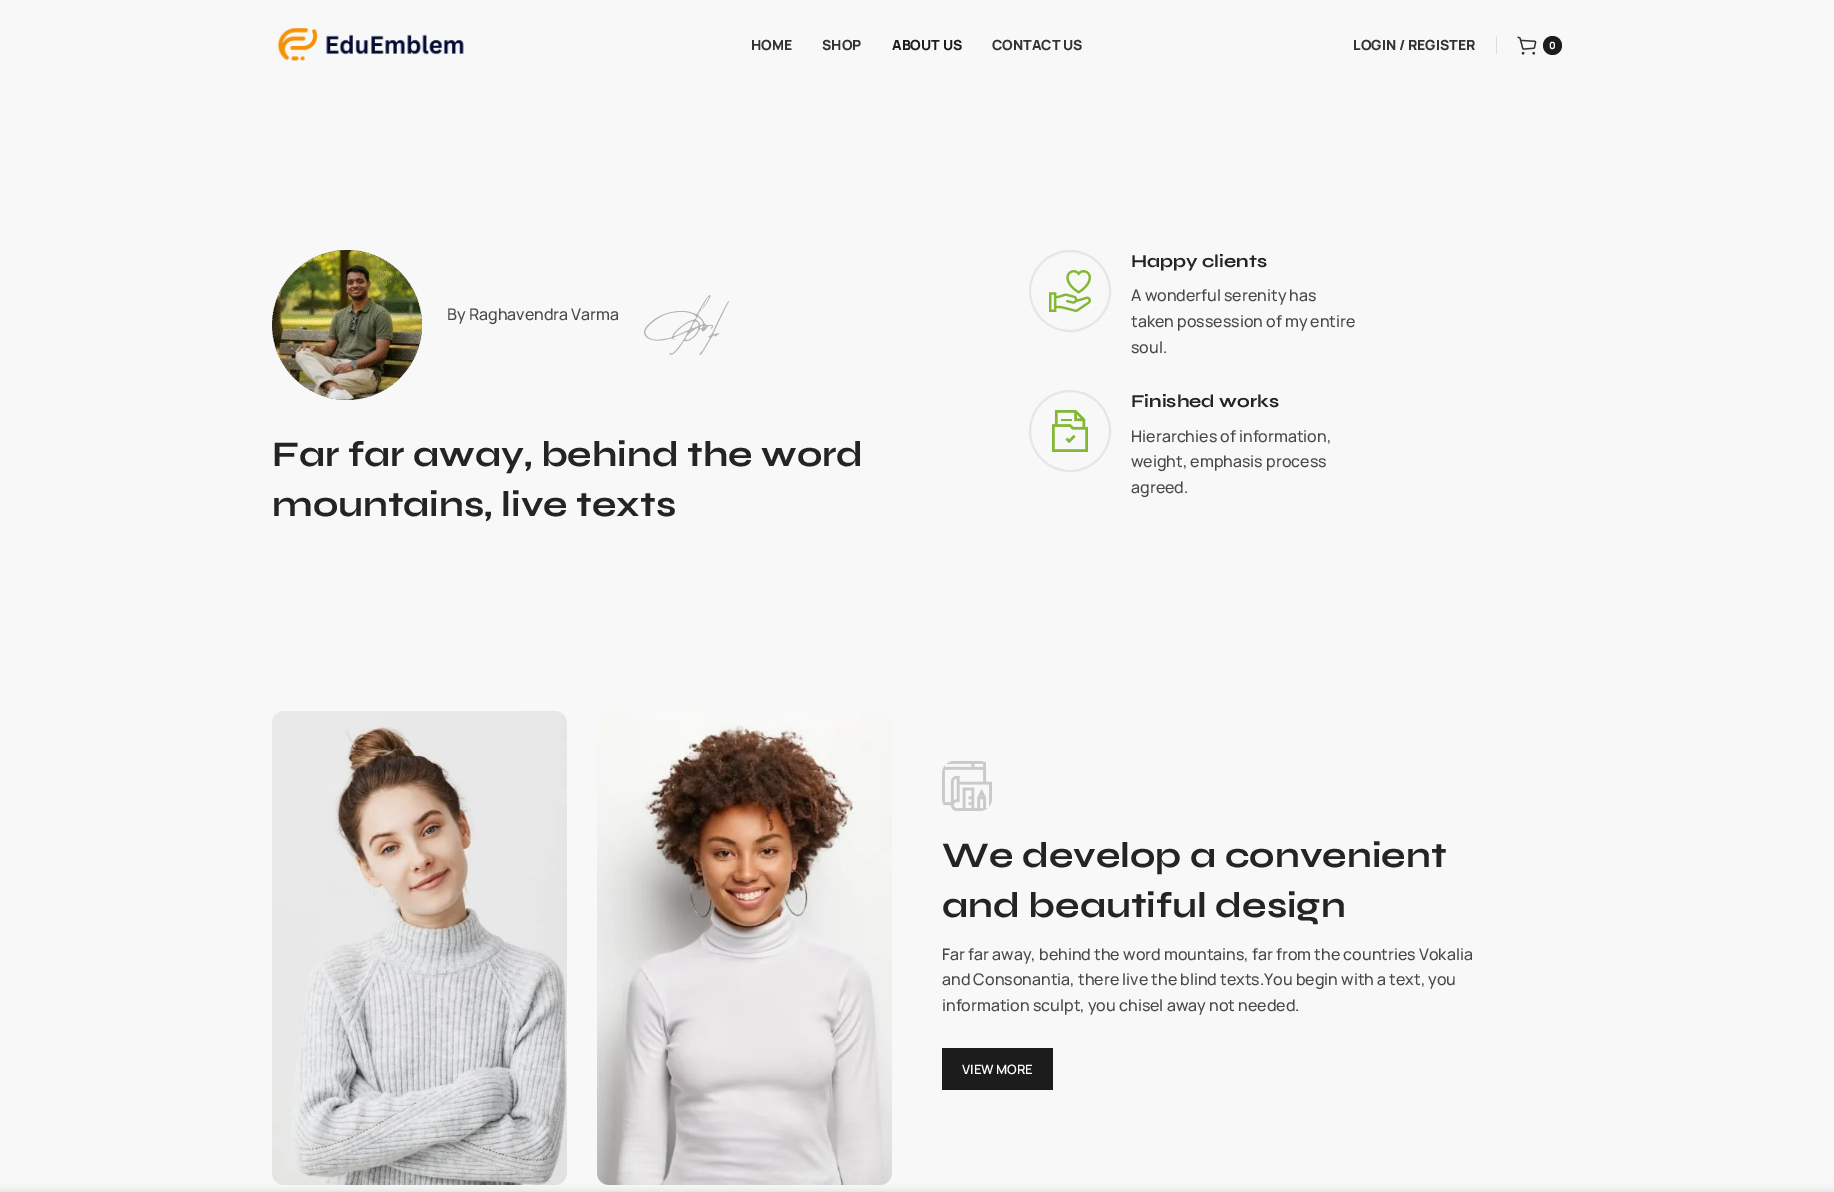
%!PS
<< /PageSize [1834 1192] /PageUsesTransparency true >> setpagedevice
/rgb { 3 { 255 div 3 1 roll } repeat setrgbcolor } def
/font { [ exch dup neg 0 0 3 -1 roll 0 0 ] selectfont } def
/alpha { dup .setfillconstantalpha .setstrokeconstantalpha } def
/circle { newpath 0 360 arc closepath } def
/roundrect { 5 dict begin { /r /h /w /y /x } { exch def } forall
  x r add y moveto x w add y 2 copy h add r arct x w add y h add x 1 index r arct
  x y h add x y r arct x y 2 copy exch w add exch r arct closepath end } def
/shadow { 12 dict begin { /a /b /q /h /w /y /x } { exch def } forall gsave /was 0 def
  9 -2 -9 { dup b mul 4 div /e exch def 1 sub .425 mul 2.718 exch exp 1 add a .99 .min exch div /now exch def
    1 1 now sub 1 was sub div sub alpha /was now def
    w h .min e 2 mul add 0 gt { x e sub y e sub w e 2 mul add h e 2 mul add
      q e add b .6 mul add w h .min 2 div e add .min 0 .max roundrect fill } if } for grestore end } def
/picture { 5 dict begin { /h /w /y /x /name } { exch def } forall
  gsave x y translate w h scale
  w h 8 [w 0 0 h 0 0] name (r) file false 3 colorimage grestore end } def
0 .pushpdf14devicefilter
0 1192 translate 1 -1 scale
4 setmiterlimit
248 248 248 rgb
0 0 1834 1192 rectfill
(img/1.rgb) 277 28 187 34 picture
222 222 222 rgb
1496 36 1 18 rectfill
(img/2.rgb) 1517 36 20 19 picture
28 28 28 rgb
1552.5 45.5 9.5 circle fill
(img/3.rgb) 272 250 150 150 picture
(img/4.rgb) 644 295 85 60 picture
230 230 230 rgb
2 setlinewidth
1070 291 40 circle stroke
(img/5.rgb) 1049 270 42 42 picture
1070 431 40 circle stroke
(img/6.rgb) 1052 410 36 42 picture
(img/7.rgb) 272 711 295 474 picture
(img/8.rgb) 597 711 295 474 picture
(img/9.rgb) 942 761 50 50 picture
28 28 28 rgb
942 1048 111 42 rectfill
0 0 0 rgb
0 1192 1834 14 0 4.5 0.14 shadow
/Manrope-ExtraBold 14 font
51 51 51 rgb
751 50 moveto (HOME) show
822 50 moveto (SHOP) show
28 28 28 rgb
892 50 moveto (ABOUT US) show
51 51 51 rgb
992 50 moveto (CONTACT US) show
1353 50 moveto (LOGIN / REGISTER) show
/Manrope-ExtraBold 10 font
255 255 255 rgb
1549 49 moveto (0) show
/Manrope-Medium 16 font
72 72 72 rgb
447 320 moveto (By Raghavendra Varma) show
/Syne-Bold 36 font
36 36 36 rgb
272 466 moveto (Far far away, behind the word) show
272 516 moveto (mountains, live texts) show
/Syne-Bold 18 font
1131 267 moveto (Happy clients) show
/Manrope-Medium 16 font
72 72 72 rgb
[
  [(A wonderful serenity has) 1131 301]
  [(taken possession of my entire) 1131 327]
  [(soul.) 1131 353]
] { aload pop moveto show } forall
/Syne-Bold 18 font
36 36 36 rgb
1131 407 moveto (Finished works) show
/Manrope-Medium 16 font
72 72 72 rgb
[
  [(Hierarchies of information,) 1131 442]
  [(weight, emphasis process) 1131 467]
  [(agreed.) 1131 493]
] { aload pop moveto show } forall
/Syne-Bold 36 font
36 36 36 rgb
942 867 moveto (We develop a convenient) show
942 917 moveto (and beautiful design) show
/Manrope-Medium 16 font
72 72 72 rgb
[
  [(Far far away, behind the word mountains, far from the countries Vokalia) 942 960]
  [(and Consonantia, there live the blind texts.You begin with a text, you) 942 985]
  [(information sculpt, you chisel away not needed.) 942 1011]
] { aload pop moveto show } forall
/Manrope-SemiBold 13 font
255 255 255 rgb
962 1074 moveto (VIEW MORE) show
.poppdf14devicefilter showpage
